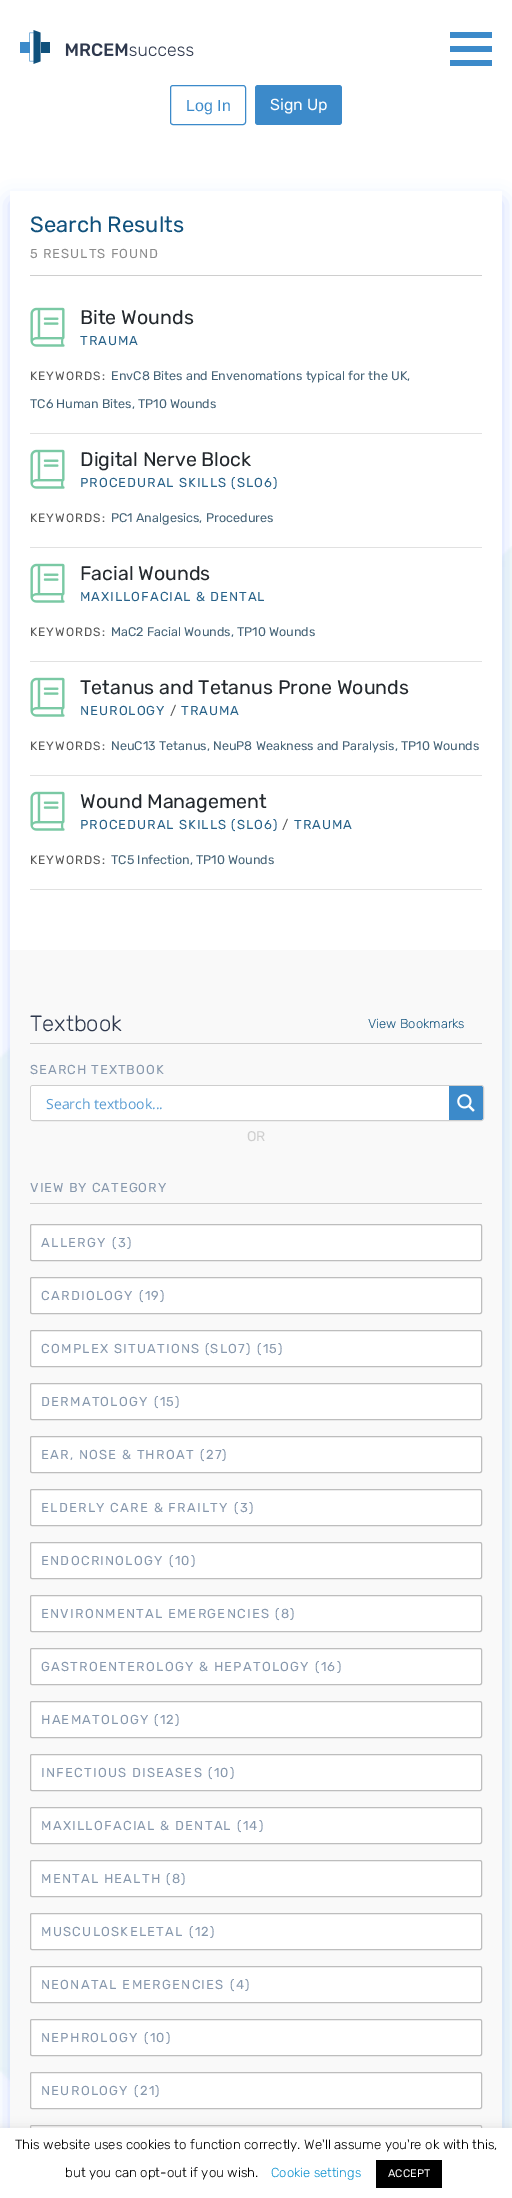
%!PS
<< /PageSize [512 2198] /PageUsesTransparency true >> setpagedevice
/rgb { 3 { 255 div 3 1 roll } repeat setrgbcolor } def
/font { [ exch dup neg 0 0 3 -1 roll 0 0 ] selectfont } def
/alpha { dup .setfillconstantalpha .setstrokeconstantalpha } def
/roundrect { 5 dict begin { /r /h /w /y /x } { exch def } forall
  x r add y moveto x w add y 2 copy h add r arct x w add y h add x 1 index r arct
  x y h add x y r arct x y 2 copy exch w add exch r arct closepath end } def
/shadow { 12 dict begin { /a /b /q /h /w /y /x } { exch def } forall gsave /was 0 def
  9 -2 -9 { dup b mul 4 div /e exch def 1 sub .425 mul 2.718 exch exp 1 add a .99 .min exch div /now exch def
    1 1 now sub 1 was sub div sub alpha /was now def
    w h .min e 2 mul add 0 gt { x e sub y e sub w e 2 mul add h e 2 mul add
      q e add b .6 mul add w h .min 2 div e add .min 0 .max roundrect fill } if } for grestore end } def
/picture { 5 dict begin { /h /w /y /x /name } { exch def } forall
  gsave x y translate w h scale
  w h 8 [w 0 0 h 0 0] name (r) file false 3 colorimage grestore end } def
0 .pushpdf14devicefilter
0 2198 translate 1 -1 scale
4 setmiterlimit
255 255 255 rgb
0 0 512 2198 rectfill
(img/1.rgb) 0 546 512 1582 picture
(img/2.rgb) 20 30 174 34 picture
[
  [450 46 42 6 60 138 202]
  [450 32 42 6 60 138 202]
  [450 60 42 6 60 138 202]
] { aload pop rgb rectfill } forall
170.5 85.5 75 39 2.5 roundrect stroke
255 85 87 40 3 roundrect fill
46 91 255 rgb
10 201 492 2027 0 10 0.24 shadow
[
  [10 191 492 759 255 255 255]
  [30 275 452 1 206 206 206]
  [30 433 452 1 225 225 225]
] { aload pop rgb rectfill } forall
(img/3.rgb) 30 307 35 40 picture
30 547 452 1 rectfill
(img/3.rgb) 30 449 35 40 picture
30 661 452 1 rectfill
(img/3.rgb) 30 563 35 40 picture
30 775 452 1 rectfill
(img/3.rgb) 30 677 35 40 picture
30 889 452 1 rectfill
(img/3.rgb) 30 791 35 40 picture
249 249 249 rgb
10 950 492 1178 rectfill
206 206 206 rgb
30 1043 452 1 rectfill
30.5 1085.5 453 35 2.5 roundrect stroke
255 255 255 rgb
31 1086 452 34 2 roundrect fill
60 138 202 rgb
449 1086 moveto 481 1086 lineto 482 1086 483 1087 483 1088 curveto 483 1118 lineto 483 1119 482 1120 481 1120 curveto 449 1120 lineto closepath fill
(img/4.rgb) 457 1094 18 18 picture
206 206 206 rgb
30 1203 452 1 rectfill
255 255 255 rgb
30.5 1224.5 451 36 1.5 roundrect gsave fill grestore
189 189 189 rgb
stroke
255 255 255 rgb
30.5 1277.5 451 36 1.5 roundrect gsave fill grestore
189 189 189 rgb
stroke
255 255 255 rgb
30.5 1330.5 451 36 1.5 roundrect gsave fill grestore
189 189 189 rgb
stroke
255 255 255 rgb
30.5 1383.5 451 36 1.5 roundrect gsave fill grestore
189 189 189 rgb
stroke
255 255 255 rgb
30.5 1436.5 451 36 1.5 roundrect gsave fill grestore
189 189 189 rgb
stroke
255 255 255 rgb
30.5 1489.5 451 36 1.5 roundrect gsave fill grestore
189 189 189 rgb
stroke
255 255 255 rgb
30.5 1542.5 451 36 1.5 roundrect gsave fill grestore
189 189 189 rgb
stroke
255 255 255 rgb
30.5 1595.5 451 36 1.5 roundrect gsave fill grestore
189 189 189 rgb
stroke
255 255 255 rgb
30.5 1648.5 451 36 1.5 roundrect gsave fill grestore
189 189 189 rgb
stroke
255 255 255 rgb
30.5 1701.5 451 36 1.5 roundrect gsave fill grestore
189 189 189 rgb
stroke
255 255 255 rgb
30.5 1754.5 451 36 1.5 roundrect gsave fill grestore
189 189 189 rgb
stroke
255 255 255 rgb
30.5 1807.5 451 36 1.5 roundrect gsave fill grestore
189 189 189 rgb
stroke
255 255 255 rgb
30.5 1860.5 451 36 1.5 roundrect gsave fill grestore
189 189 189 rgb
stroke
255 255 255 rgb
30.5 1913.5 451 36 1.5 roundrect gsave fill grestore
189 189 189 rgb
stroke
255 255 255 rgb
30.5 1966.5 451 36 1.5 roundrect gsave fill grestore
189 189 189 rgb
stroke
255 255 255 rgb
30.5 2019.5 451 36 1.5 roundrect gsave fill grestore
189 189 189 rgb
stroke
255 255 255 rgb
30.5 2072.5 451 36 1.5 roundrect gsave fill grestore
189 189 189 rgb
stroke
255 255 255 rgb
30.5 2125.5 451 36 1.5 roundrect gsave fill grestore
189 189 189 rgb
stroke
172 171 171 rgb
0 2127 512 70 0 5 0.3 shadow
255 255 255 rgb
0 2128 512 70 rectfill
0 0 0 rgb
376 2160 66 28 rectfill
/LiberationSans-Regular 16 font
60 138 202 rgb
186 111 moveto (Log In) show
/Rubik-Regular 16 font
255 255 255 rgb
270 110 moveto (Sign Up) show
/Rubik-Regular 22 font
16 81 124 rgb
30 232 moveto (Search Results) show
/Rubik-Regular 13 font
140 140 140 rgb
30 258 moveto 1 0 (5 RESULTS FOUND) ashow
/Rubik-Regular 19.6 font
35 40 45 rgb
80 324 moveto (Bite Wounds) show
/Rubik-Regular 13 font
40 98 137 rgb
80 345 moveto 1 0 (TRAUMA) ashow
/Rubik-Regular 12 font
85 85 85 rgb
30 380 moveto 1 0 (KEYWORDS:) ashow
/Rubik-Regular 12.6 font
69 99 119 rgb
[
  [(EnvC8 Bites and Envenomations typical for the UK,) 111 380]
  [(TC6 Human Bites,) 30 408]
  [(TP10 Wounds) 138 408]
] { aload pop moveto show } forall
/Rubik-Regular 19.6 font
35 40 45 rgb
80 466 moveto (Digital Nerve Block) show
/Rubik-Regular 13 font
40 98 137 rgb
80 487 moveto 1 0 (PROCEDURAL SKILLS \(SLO6\)) ashow
/Rubik-Regular 12 font
85 85 85 rgb
30 522 moveto 1 0 (KEYWORDS:) ashow
/Rubik-Regular 12.6 font
69 99 119 rgb
111 522 moveto (PC1 Analgesics,) show
206 522 moveto (Procedures) show
/Rubik-Regular 19.6 font
35 40 45 rgb
80 580 moveto (Facial Wounds) show
/Rubik-Regular 13 font
40 98 137 rgb
80 601 moveto 1 0 (MAXILLOFACIAL & DENTAL) ashow
/Rubik-Regular 12 font
85 85 85 rgb
30 636 moveto 1 0 (KEYWORDS:) ashow
/Rubik-Regular 12.6 font
69 99 119 rgb
111 636 moveto (MaC2 Facial Wounds,) show
237 636 moveto (TP10 Wounds) show
/Rubik-Regular 19.6 font
35 40 45 rgb
80 694 moveto (Tetanus and Tetanus Prone Wounds) show
/Rubik-Regular 13 font
40 98 137 rgb
80 715 moveto 1 0 (NEUROLOGY) ashow
85 85 85 rgb
170 715 moveto 1 0 (/) ashow
40 98 137 rgb
181 715 moveto 1 0 (TRAUMA) ashow
/Rubik-Regular 12 font
85 85 85 rgb
30 750 moveto 1 0 (KEYWORDS:) ashow
/Rubik-Regular 12.6 font
69 99 119 rgb
111 750 moveto (NeuC13 Tetanus,) show
213 750 moveto (NeuP8 Weakness and Paralysis, TP10 Wounds) show
/Rubik-Regular 19.6 font
35 40 45 rgb
80 808 moveto (Wound Management) show
/Rubik-Regular 13 font
40 98 137 rgb
80 829 moveto 1 0 (PROCEDURAL SKILLS \(SLO6\)) ashow
85 85 85 rgb
282 829 moveto 1 0 (/) ashow
40 98 137 rgb
294 829 moveto 1 0 (TRAUMA) ashow
/Rubik-Regular 12 font
85 85 85 rgb
30 864 moveto 1 0 (KEYWORDS:) ashow
/Rubik-Regular 12.6 font
69 99 119 rgb
111 864 moveto (TC5 Infection,) show
196 864 moveto (TP10 Wounds) show
/Rubik-Light 22 font
46 56 77 rgb
30 1031 moveto (Textbook) show
/Rubik-Light 13 font
16 81 124 rgb
368 1028 moveto (View Bookmarks) show
/Rubik-Regular 13 font
135 152 173 rgb
30 1074 moveto 1 0 (SEARCH TEXTBOOK) ashow
/OpenSans-Regular 14 font
89 156 210 rgb
46 1109 moveto (Search textbook...) show
/Rubik-Regular 14 font
206 206 206 rgb
247 1141 moveto (OR) show
/Rubik-Regular 13 font
135 152 173 rgb
30 1192 moveto 1 0 (VIEW BY CATEGORY) ashow
41 1247 moveto 1.25 0 (ALLERGY) ashow
112 1247 moveto 1.25 0 (\(3\)) ashow
41 1300 moveto 1.25 0 (CARDIOLOGY) ashow
139 1300 moveto 1.25 0 (\(19\)) ashow
41 1353 moveto 1.25 0 (COMPLEX SITUATIONS \(SLO7\)) ashow
257 1353 moveto 1.25 0 (\(15\)) ashow
41 1406 moveto 1.25 0 (DERMATOLOGY) ashow
154 1406 moveto 1.25 0 (\(15\)) ashow
41 1459 moveto 1.25 0 (EAR, NOSE & THROAT) ashow
200 1459 moveto 1.25 0 (\(27\)) ashow
41 1512 moveto 1.25 0 (ELDERLY CARE & FRAILTY) ashow
234 1512 moveto 1.25 0 (\(3\)) ashow
41 1565 moveto 1.25 0 (ENDOCRINOLOGY) ashow
169 1565 moveto 1.25 0 (\(10\)) ashow
41 1618 moveto 1.25 0 (ENVIRONMENTAL EMERGENCIES) ashow
275 1618 moveto 1.25 0 (\(8\)) ashow
41 1671 moveto 1.25 0 (GASTROENTEROLOGY & HEPATOLOGY) ashow
315 1671 moveto 1.25 0 (\(16\)) ashow
41 1724 moveto 1.25 0 (HAEMATOLOGY) ashow
154 1724 moveto 1.25 0 (\(12\)) ashow
41 1777 moveto 1.25 0 (INFECTIOUS DISEASES) ashow
208 1777 moveto 1.25 0 (\(10\)) ashow
41 1830 moveto 1.25 0 (MAXILLOFACIAL & DENTAL) ashow
237 1830 moveto 1.25 0 (\(14\)) ashow
41 1883 moveto 1.25 0 (MENTAL HEALTH) ashow
166 1883 moveto 1.25 0 (\(8\)) ashow
41 1936 moveto 1.25 0 (MUSCULOSKELETAL) ashow
189 1936 moveto 1.25 0 (\(12\)) ashow
41 1989 moveto 1.25 0 (NEONATAL EMERGENCIES) ashow
230 1989 moveto 1.25 0 (\(4\)) ashow
41 2042 moveto 1.25 0 (NEPHROLOGY) ashow
144 2042 moveto 1.25 0 (\(10\)) ashow
41 2095 moveto 1.25 0 (NEUROLOGY) ashow
134 2095 moveto 1.25 0 (\(21\)) ashow
/Rubik-Light 13.35 font
0 0 0 rgb
15 2149 moveto (This website uses cookies to function correctly. We'll assume you're ok with this,) show
65 2177 moveto (but you can opt-out if you wish.) show
/Rubik-Light 13 font
8 143 206 rgb
271 2177 moveto (Cookie settings) show
/Rubik-Regular 11 font
255 255 255 rgb
388 2177 moveto (ACCEPT) show
.poppdf14devicefilter showpage
